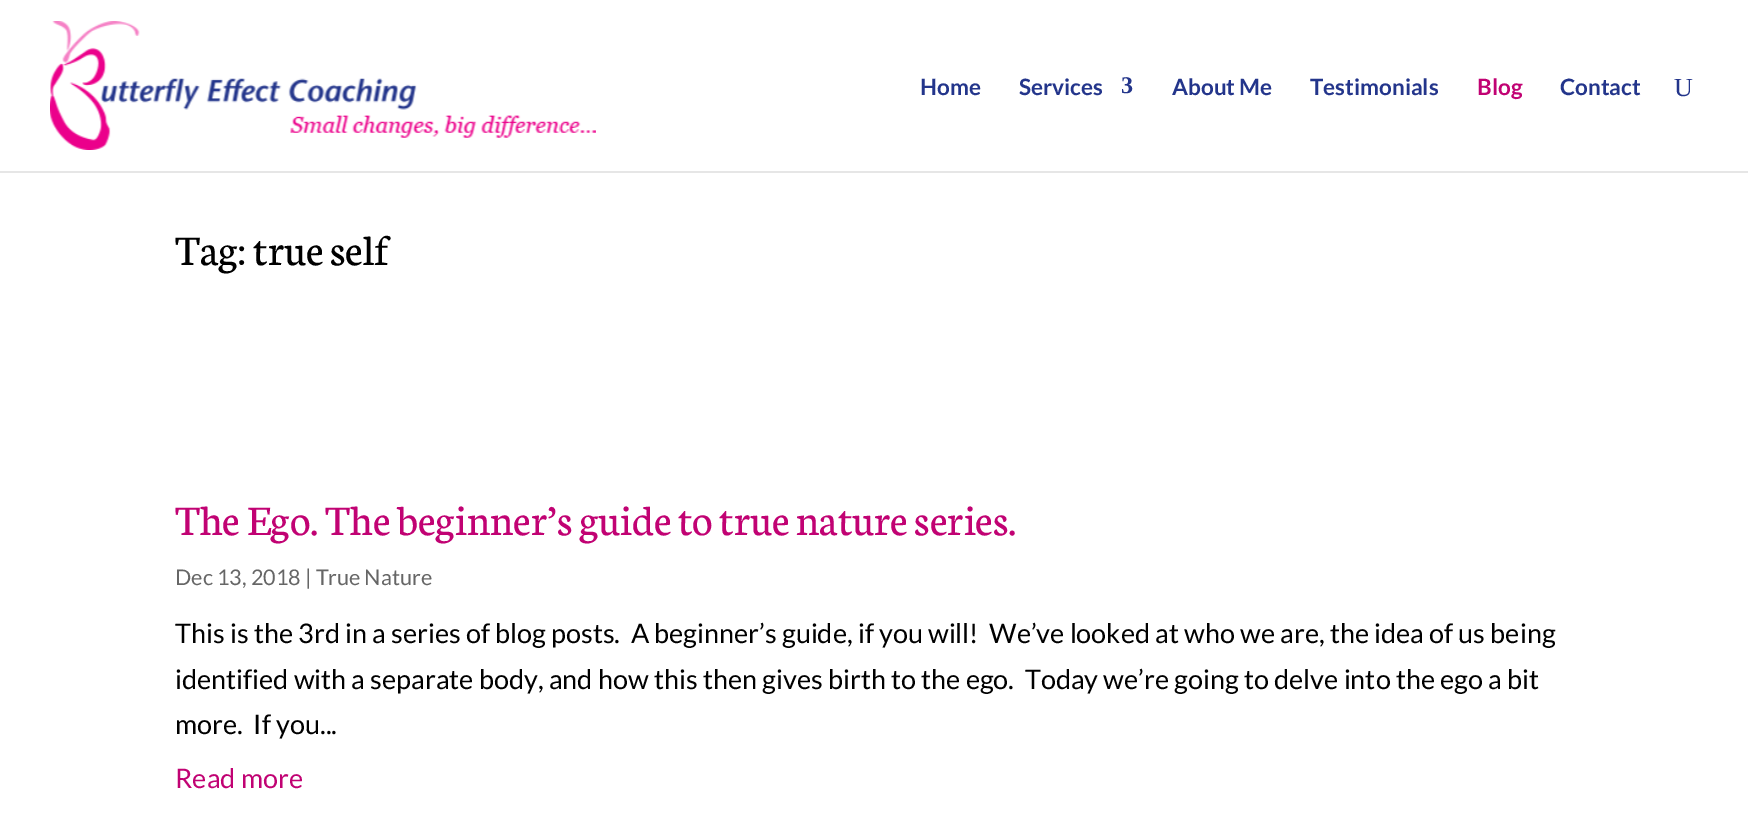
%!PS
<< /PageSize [1748 839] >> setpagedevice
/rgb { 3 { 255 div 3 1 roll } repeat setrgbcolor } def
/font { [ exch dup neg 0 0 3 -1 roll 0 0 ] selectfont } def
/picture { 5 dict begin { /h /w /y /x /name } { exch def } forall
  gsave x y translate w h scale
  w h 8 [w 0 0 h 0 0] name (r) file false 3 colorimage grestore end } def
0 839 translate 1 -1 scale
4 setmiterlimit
255 255 255 rgb
0 0 1748 839 rectfill
230 230 230 rgb
0 171 1748 2 rectfill
(img/1.rgb) 50 21 546 129 picture
/Lato-Bold 22.5 font
35 53 139 rgb
920 95 moveto (Home) show
1019 95 moveto (Services) show
/LiberationSerif-Bold 24 font
1121 93 moveto (3) show
/Lato-Bold 22.5 font
1172 95 moveto (About Me) show
1310 95 moveto (Testimonials) show
193 2 115 rgb
1477 95 moveto (Blog) show
35 53 139 rgb
1560 95 moveto (Contact) show
/LiberationSerif-Regular 26 font
1674 96 moveto (U) show
/Neuton-Regular 45 font
0 0 0 rgb
175 265 moveto (Tag: true self) show
193 2 115 rgb
175 535 moveto (The Ego. The beginner’s guide to true nature series.) show
/Lato-Regular 21.6 font
102 102 102 rgb
175 585 moveto (Dec 13, 2018 | True Nature) show
/Lato-Regular 27 font
0 0 0 rgb
[
  [(This is the 3rd in a series of blog posts.  A beginner’s guide, if you will!  We’ve looked at who we are, the idea of us being) 175 643]
  [(identified with a separate body, and how this then gives birth to the ego.  Today we’re going to delve into the ego a bit) 175 689]
  [(more.  If you...) 175 734]
] { aload pop moveto show } forall
193 2 115 rgb
175 788 moveto (Read more) show
showpage
